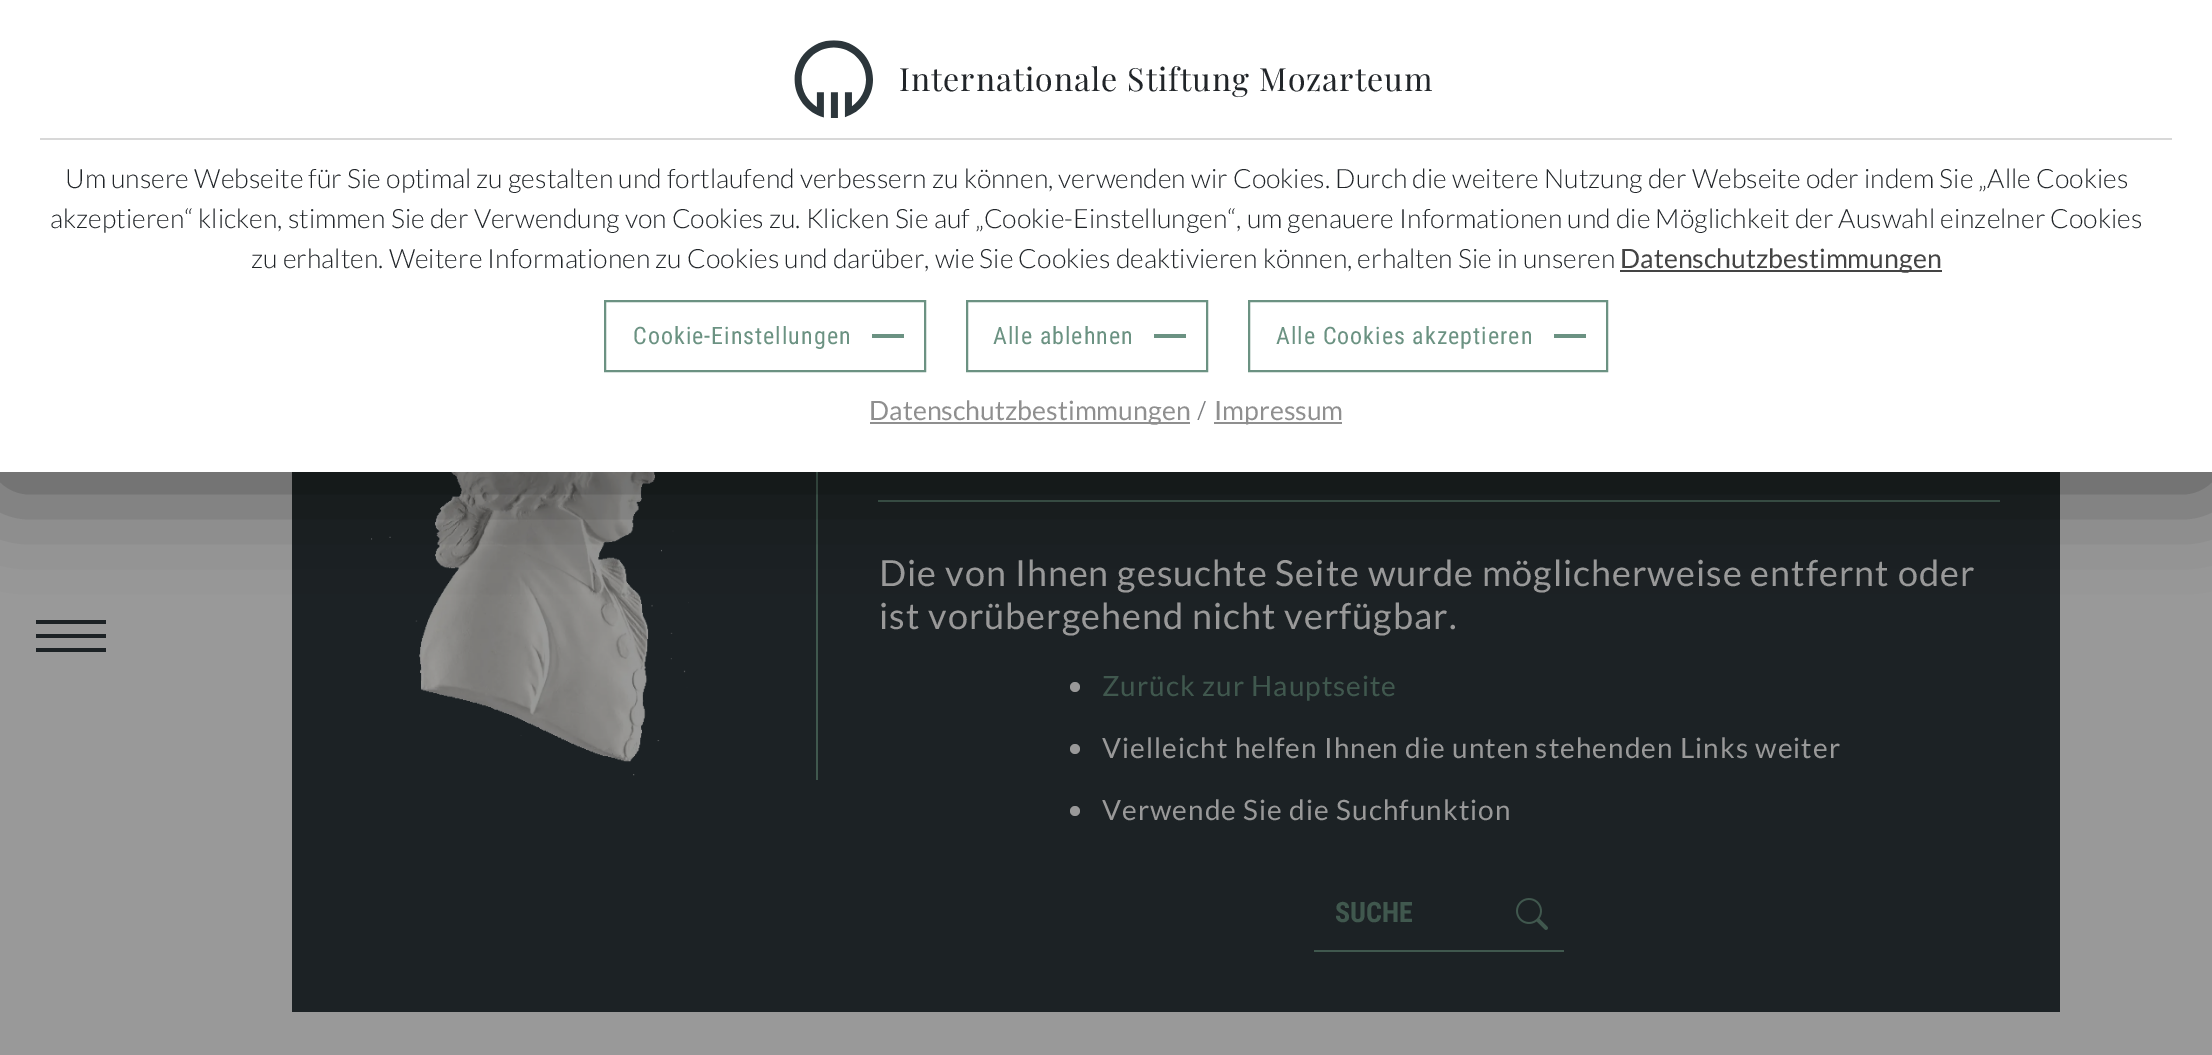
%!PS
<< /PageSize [2212 1055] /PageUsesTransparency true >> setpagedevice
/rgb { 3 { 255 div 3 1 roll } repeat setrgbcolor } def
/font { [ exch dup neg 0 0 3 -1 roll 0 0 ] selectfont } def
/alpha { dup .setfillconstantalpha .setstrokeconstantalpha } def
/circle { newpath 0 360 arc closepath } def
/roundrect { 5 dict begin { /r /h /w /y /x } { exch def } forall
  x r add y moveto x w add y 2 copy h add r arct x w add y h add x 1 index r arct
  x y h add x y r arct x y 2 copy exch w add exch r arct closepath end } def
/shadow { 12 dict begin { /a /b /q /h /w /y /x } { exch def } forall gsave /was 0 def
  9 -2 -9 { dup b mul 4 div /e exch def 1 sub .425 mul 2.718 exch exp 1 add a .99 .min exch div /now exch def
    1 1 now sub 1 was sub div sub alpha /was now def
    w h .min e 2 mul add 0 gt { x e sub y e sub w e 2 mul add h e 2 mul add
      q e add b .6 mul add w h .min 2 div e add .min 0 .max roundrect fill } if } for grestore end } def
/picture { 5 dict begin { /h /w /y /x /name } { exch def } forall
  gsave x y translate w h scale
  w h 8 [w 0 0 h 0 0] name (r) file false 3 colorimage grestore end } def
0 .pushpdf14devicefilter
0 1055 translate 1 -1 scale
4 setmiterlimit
153 153 153 rgb
0 0 2212 1055 rectfill
[
  [36 620 70 4 28 34 37]
  [292 472 1768 540 28 34 37]
  [816 472 2 308 64 88 78]
] { aload pop rgb rectfill } forall
(img/2.rgb) 371 472 318 304 picture
878 500 1122 2 rectfill
0 0 0 rgb
0 10 2212 472 0 50 0.5 shadow
255 255 255 rgb
0 0 2212 472 rectfill
216 216 216 rgb
40 138 2132 2 rectfill
(img/1.rgb) 794 40 79 78 picture
68 68 68 rgb
1620 270 322 2 rectfill
107 146 130 rgb
2 setlinewidth
605 301 320 70 rectstroke
872 334 32 4 rectfill
967 301 240 70 rectstroke
1154 334 32 4 rectfill
1249 301 358 70 rectstroke
[
  [1554 334 32 4 107 146 130]
  [870 422 320 2 143 143 143]
  [1214 422 128 2 143 143 143]
  [36 634 70 4 28 34 37]
  [36 648 70 4 28 34 37]
] { aload pop rgb rectfill } forall
153 153 153 rgb
1075 687 5 circle fill
1075 749 5 circle fill
1075 811 5 circle fill
64 88 78 rgb
1314 950 250 2 rectfill
(img/3.rgb) 1516 898 32 32 picture
/PlayfairDisplay-Regular 32 font
33 37 41 rgb
899 91 moveto 1 0 (Internationale Stiftung Mozarteum) ashow
/Lato-Light 26.67 font
[
  [(Um unsere Webseite für Sie optimal zu gestalten und fortlaufend verbessern zu können, verwenden wir Cookies. Durch die weitere Nutzung der Webseite oder indem Sie „Alle Cookies) 65 188]
  [(akzeptieren“ klicken, stimmen Sie der Verwendung von Cookies zu. Klicken Sie auf „Cookie-Einstellungen“, um genauere Informationen und die Möglichkeit der Auswahl einzelner Cookies) 50 228]
  [(zu erhalten. Weitere Informationen zu Cookies und darüber, wie Sie Cookies deaktivieren können, erhalten Sie in unseren) 251 268]
] { aload pop moveto show } forall
/Lato-Regular 26.67 font
68 68 68 rgb
1620 268 moveto (Datenschutzbestimmungen) show
/RobotoCondensed-Regular 24 font
107 146 130 rgb
633 344 moveto 1 0 (Cookie-Einstellungen) ashow
993 344 moveto 1 0 (Alle ablehnen) ashow
1276 344 moveto 1 0 (Alle Cookies akzeptieren) ashow
/Lato-Regular 26.67 font
143 143 143 rgb
869 420 moveto (Datenschutzbestimmungen) show
/NotoSans-Light 26.67 font
122 124 127 rgb
1197 420 moveto (/) show
/Lato-Regular 26.67 font
143 143 143 rgb
1214 420 moveto (Impressum) show
/Lato-Regular 36 font
153 153 153 rgb
879 586 moveto 1 0 (Die von Ihnen gesuchte Seite wurde möglicherweise entfernt oder) ashow
879 629 moveto 1 0 (ist vorübergehend nicht verfügbar.) ashow
/Lato-Regular 28 font
64 88 78 rgb
1102 696 moveto 1 0 (Zurück zur Hauptseite) ashow
153 153 153 rgb
1102 758 moveto 1 0 (Vielleicht helfen Ihnen die unten stehenden Links weiter) ashow
1102 820 moveto 1 0 (Verwende Sie die Suchfunktion) ashow
/RobotoCondensed-Bold 28 font
64 88 78 rgb
1335 922 moveto (SUCHE) show
.poppdf14devicefilter showpage
